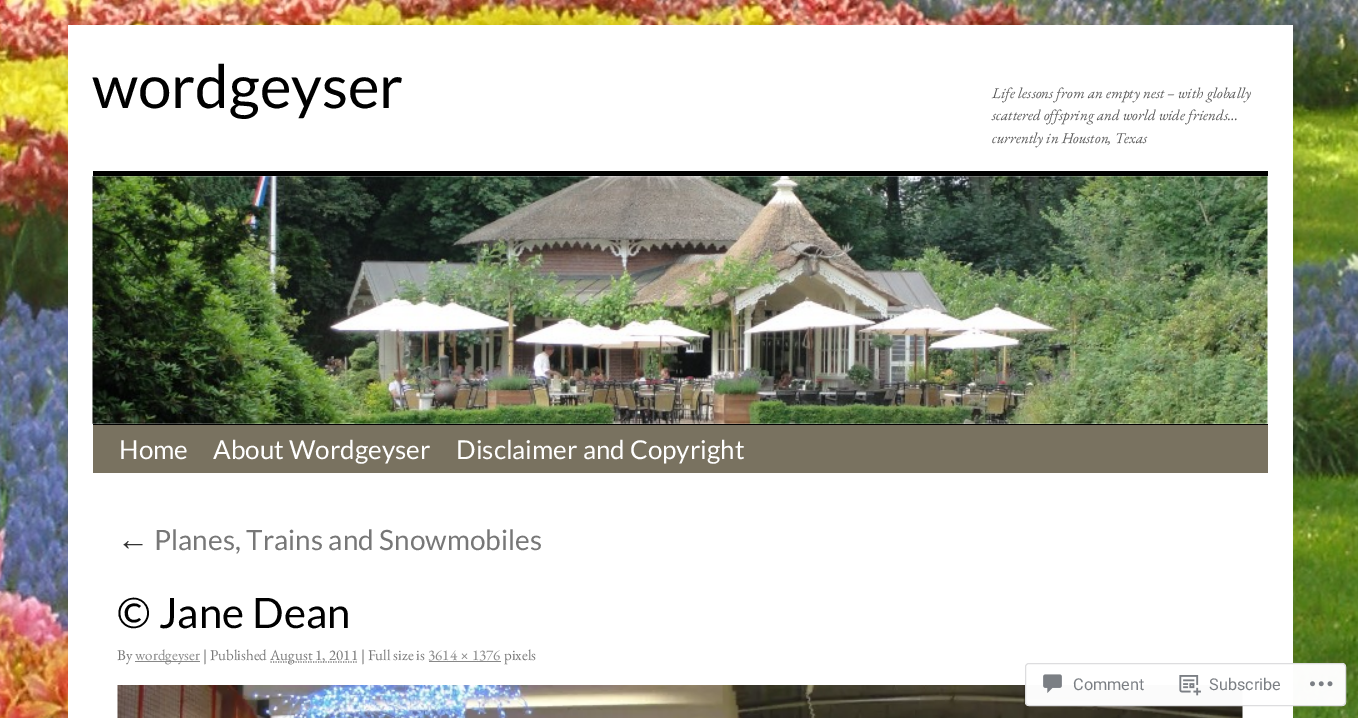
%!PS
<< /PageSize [1358 718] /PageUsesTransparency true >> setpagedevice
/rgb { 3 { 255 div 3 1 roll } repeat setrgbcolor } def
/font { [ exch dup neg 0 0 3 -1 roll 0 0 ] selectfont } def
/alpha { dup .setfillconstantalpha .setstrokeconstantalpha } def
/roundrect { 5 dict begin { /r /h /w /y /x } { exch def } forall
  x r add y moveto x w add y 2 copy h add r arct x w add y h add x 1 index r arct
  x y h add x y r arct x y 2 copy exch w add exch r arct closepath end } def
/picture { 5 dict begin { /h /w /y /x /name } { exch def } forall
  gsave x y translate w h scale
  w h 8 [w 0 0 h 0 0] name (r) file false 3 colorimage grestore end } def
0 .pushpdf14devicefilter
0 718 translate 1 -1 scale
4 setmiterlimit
255 255 255 rgb
0 0 1358 718 rectfill
(img/1.rgb) 0 0 1358 718 picture
[
  [68 25 1225 693 255 255 255]
  [93 171 1175 5 0 0 0]
  [93 424 1175 1 0 0 0]
] { aload pop rgb rectfill } forall
(img/2.rgb) 92 176 1176 248 picture
121 114 96 rgb
93 425 1175 48 rectfill
136 136 136 rgb
135 661 65 1 rectfill
119 119 119 rgb
1.2 setlinewidth
[1.25 1.25] 0 setdash
270.5 662 moveto 358 662 lineto stroke
136 136 136 rgb
429 661 72 1 rectfill
(img/3.rgb) 117 685 1126 33 picture
0.98 alpha
255 255 255 rgb
1025 663 321 43 4 roundrect fill
220 220 222 rgb
1 setlinewidth
[] 0 setdash
1025.5 663.5 320 42 3.5 roundrect stroke
1 alpha
(img/4.rgb) 1043 674 19 19 picture
(img/5.rgb) 1179 675 22 21 picture
(img/6.rgb) 1310 681 23 6 picture
/Lato-Regular 60 font
0 0 0 rgb
92 108 moveto (wordgeyser) show
/EBGaramond-Italic 15 font
89 89 89 rgb
[
  [(Life lessons from an empty nest – with globally) 992 98]
  [(scattered offspring and world wide friends…) 992 120]
  [(currently in Houston, Texas) 992 143]
] { aload pop moveto show } forall
/Lato-Regular 26 font
255 255 255 rgb
[
  [(Home) 119 459]
  [(About Wordgeyser) 213 459]
  [(Disclaimer and Copyright) 456 459]
] { aload pop moveto show } forall
/LiberationSans-Regular 32 font
51 51 51 rgb
117 550 moveto (←) show
/Lato-Regular 28 font
119 119 119 rgb
154 550 moveto (Planes, Trains and Snowmobiles) show
/Lato-Regular 42 font
0 0 0 rgb
117 628 moveto (© Jane Dean) show
/EBGaramond-Regular 15 font
119 119 119 rgb
117 660 moveto (By) show
136 136 136 rgb
135 660 moveto (wordgeyser) show
119 119 119 rgb
203 660 moveto (| Published) show
270 660 moveto (August 1, 2011 | Full size is) show
136 136 136 rgb
428 660 moveto (3614 × 1376) show
119 119 119 rgb
504 660 moveto (pixels) show
/Roboto-Regular 16.25 font
123 127 132 rgb
1073 690 moveto (Comment) show
1209 690 moveto (Subscribe) show
.poppdf14devicefilter showpage
